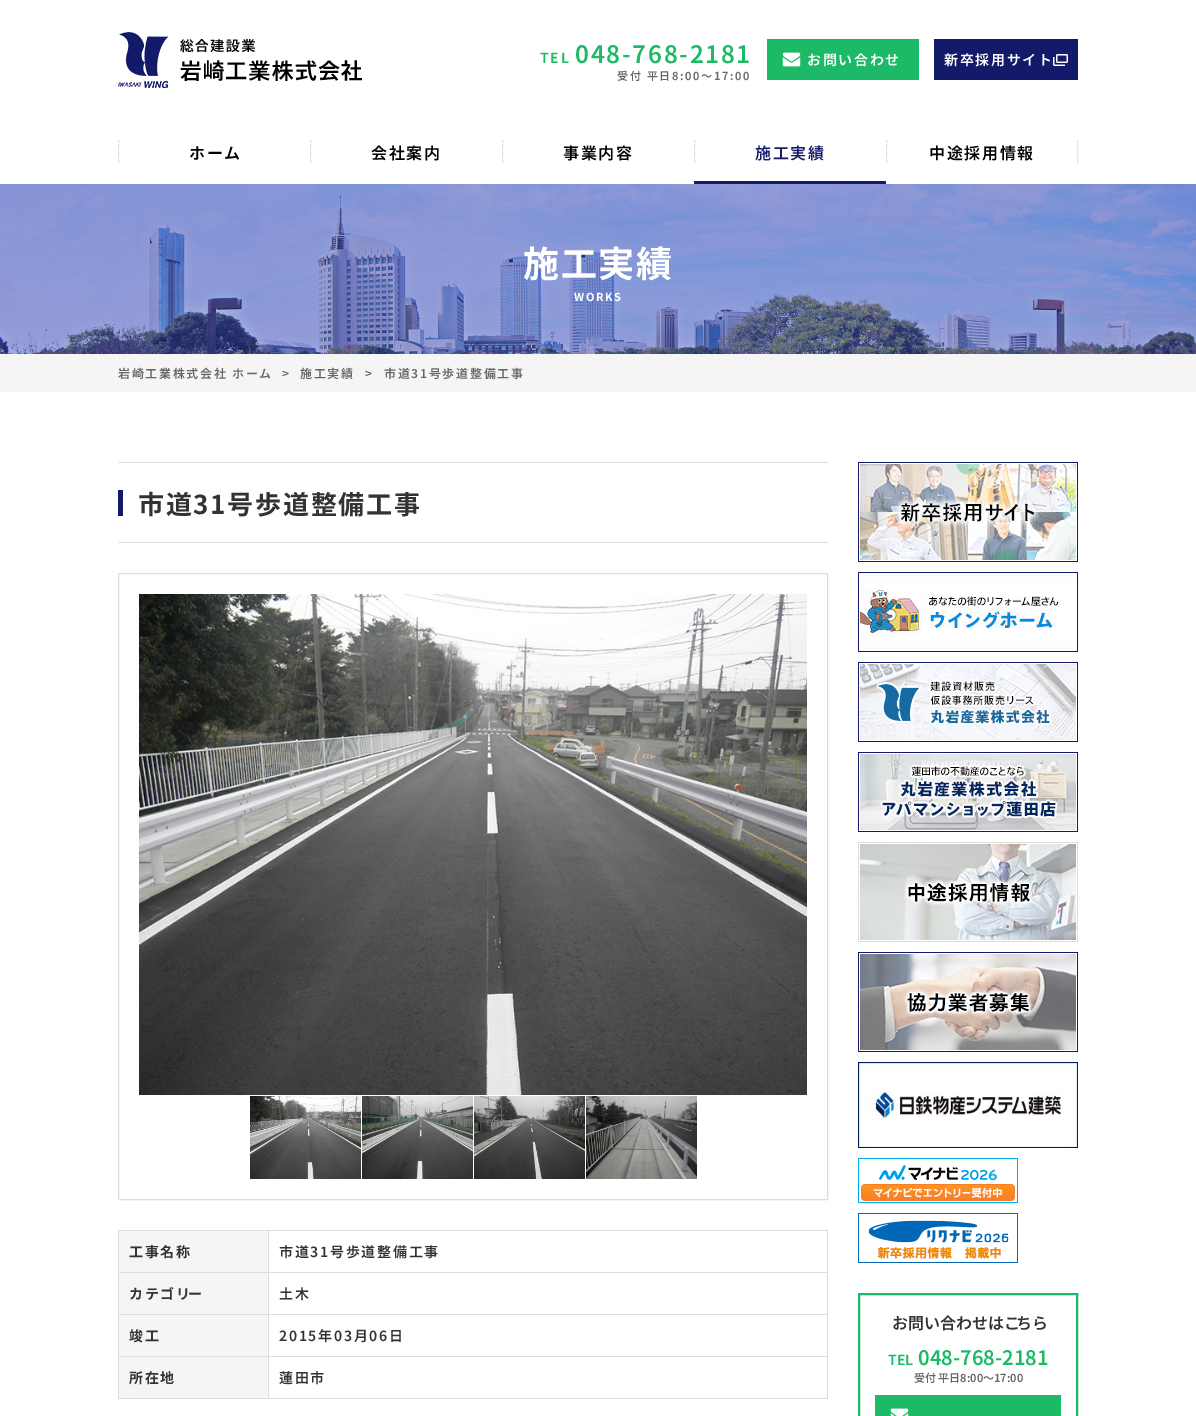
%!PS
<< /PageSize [1196 1416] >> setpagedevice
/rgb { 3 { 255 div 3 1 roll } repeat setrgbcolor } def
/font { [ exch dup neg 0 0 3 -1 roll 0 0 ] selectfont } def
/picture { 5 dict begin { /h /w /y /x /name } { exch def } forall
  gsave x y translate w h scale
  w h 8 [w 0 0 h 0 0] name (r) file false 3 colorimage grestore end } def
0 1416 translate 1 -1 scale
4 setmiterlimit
255 255 255 rgb
0 0 1196 1416 rectfill
(img/1.rgb) 118 32 244 56 picture
28 185 102 rgb
767 39 152 41 rectfill
(img/2.rgb) 782 52 19 15 picture
18 26 105 rgb
934 39 144 41 rectfill
(img/3.rgb) 1053 54 15 12 picture
204 204 204 rgb
[1 1] 0 setdash
118.5 140 moveto 118.5 164 lineto stroke
310.5 140 moveto 310.5 164 lineto stroke
502.5 140 moveto 502.5 164 lineto stroke
694.5 140 moveto 694.5 164 lineto stroke
18 26 105 rgb
694 181 192 3 rectfill
204 204 204 rgb
1077.5 140 moveto 1077.5 164 lineto stroke
886.5 140 moveto 886.5 164 lineto stroke
(img/4.rgb) 0 184 1196 170 picture
[
  [0 354 1196 38 245 245 245]
  [118 462 710 1 221 221 221]
  [118 542 710 1 221 221 221]
  [118 490 5 26 18 26 105]
] { aload pop rgb rectfill } forall
221 221 221 rgb
[] 0 setdash
118.5 573.5 709 626 rectstroke
(img/5.rgb) 139 594 668 501 picture
(img/6.rgb) 250 1096 111 83 picture
(img/7.rgb) 362 1096 111 83 picture
(img/8.rgb) 474 1096 111 83 picture
(img/9.rgb) 586 1096 111 83 picture
[
  [119 1231 149 41 245 245 245]
  [268 1230 560 1 221 221 221]
  [268 1272 560 1 221 221 221]
  [268 1314 560 1 221 221 221]
  [268 1356 560 1 221 221 221]
  [827 1356 1 43 221 221 221]
  [268 1398 560 1 221 221 221]
  [268 1356 1 43 221 221 221]
  [118 1356 151 1 221 221 221]
  [268 1314 1 43 221 221 221]
  [118 1314 151 1 221 221 221]
  [268 1272 1 43 221 221 221]
  [118 1272 151 1 221 221 221]
  [268 1230 1 43 221 221 221]
  [118 1230 151 1 221 221 221]
  [118 1398 151 1 221 221 221]
  [118 1356 1 43 221 221 221]
  [118 1314 1 43 221 221 221]
  [118 1272 1 43 221 221 221]
  [118 1230 1 43 221 221 221]
  [827 1314 1 43 221 221 221]
  [827 1272 1 43 221 221 221]
  [827 1230 1 43 221 221 221]
  [119 1273 149 41 245 245 245]
  [119 1315 149 41 245 245 245]
  [119 1357 149 41 245 245 245]
] { aload pop rgb rectfill } forall
(img/10.rgb) 858 462 220 100 picture
(img/11.rgb) 858 572 220 80 picture
(img/12.rgb) 858 662 220 80 picture
(img/13.rgb) 858 752 220 80 picture
(img/14.rgb) 858 842 220 100 picture
(img/15.rgb) 858 952 220 100 picture
(img/16.rgb) 858 1062 220 86 picture
(img/17.rgb) 858 1158 160 45 picture
(img/18.rgb) 858 1213 160 50 picture
28 185 102 rgb
2 setlinewidth
859 1294 218 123 rectstroke
875 1395 186 21 rectfill
(img/19.rgb) 890 1408 19 8 picture
/NotoSansJP-SemiBold 14 font
540 63 moveto 1.7 0 (TEL) ashow
/NotoSansJP-SemiBold 24 font
575 63 moveto 1.7 0 (048-768-2181) ashow
/NotoSansJP-SemiBold 11 font
102 102 102 rgb
617 80 moveto 1.7 0 (受付 平日8:00～17:00) ashow
/NotoSansJP-SemiBold 14 font
255 255 255 rgb
807 65 moveto 1.7 0 (お問い合わせ) ashow
944 65 moveto 1.7 0 (新卒採用サイト) ashow
/NotoSansJP-SemiBold 16 font
0 0 0 rgb
189 159 moveto 1.7 0 (ホーム) ashow
371 159 moveto 1.7 0 (会社案内) ashow
563 159 moveto 1.7 0 (事業内容) ashow
18 26 105 rgb
755 159 moveto 1.7 0 (施工実績) ashow
0 0 0 rgb
929 159 moveto 1.7 0 (中途採用情報) ashow
/NotoSansJP-Bold 36 font
255 255 255 rgb
523 277 moveto 1.7 0 (施工実績) ashow
/NotoSansJP-Bold 11 font
574 301 moveto 1.7 0 (WORKS) ashow
/NotoSansJP-SemiBold 12 font
102 102 102 rgb
118 378 moveto 1.7 0 (岩崎工業株式会社 ホーム) ashow
282 378 moveto 1.7 0 (>) ashow
300 378 moveto 1.7 0 (施工実績) ashow
365 378 moveto 1.7 0 (>) ashow
384 378 moveto 1.7 0 (市道31号歩道整備工事) ashow
/NotoSansJP-Bold 26 font
51 51 51 rgb
138 514 moveto 1.7 0 (市道31号歩道整備工事) ashow
/NotoSansJP-Bold 14 font
129 1257 moveto 1.7 0 (工事名称) ashow
/NotoSansJP-SemiBold 14 font
279 1257 moveto 1.7 0 (市道31号歩道整備工事) ashow
/NotoSansJP-Bold 14 font
129 1299 moveto 1.7 0 (カテゴリ) ashow
188 1299 moveto 1.7 0 (ー) ashow
/NotoSansJP-SemiBold 14 font
279 1299 moveto 1.7 0 (土木) ashow
/NotoSansJP-Bold 14 font
129 1341 moveto 1.7 0 (竣工) ashow
/NotoSansJP-SemiBold 14 font
279 1341 moveto 1.7 0 (2015年03月06日) ashow
/NotoSansJP-Bold 14 font
129 1383 moveto 1.7 0 (所在地) ashow
/NotoSansJP-SemiBold 14 font
279 1383 moveto 1.7 0 (蓮田市) ashow
/NotoSansJP-SemiBold 16 font
892 1329 moveto (お問い合わせはこ) show
1016 1329 moveto (ちら) show
/NotoSansJP-SemiBold 14 font
28 185 102 rgb
888 1365 moveto (TEL) show
/NotoSansJP-SemiBold 20 font
918 1365 moveto (048-768-2181) show
/NotoSansJP-SemiBold 11 font
102 102 102 rgb
914 1382 moveto (受付 平日8:00～17:00) show
showpage
